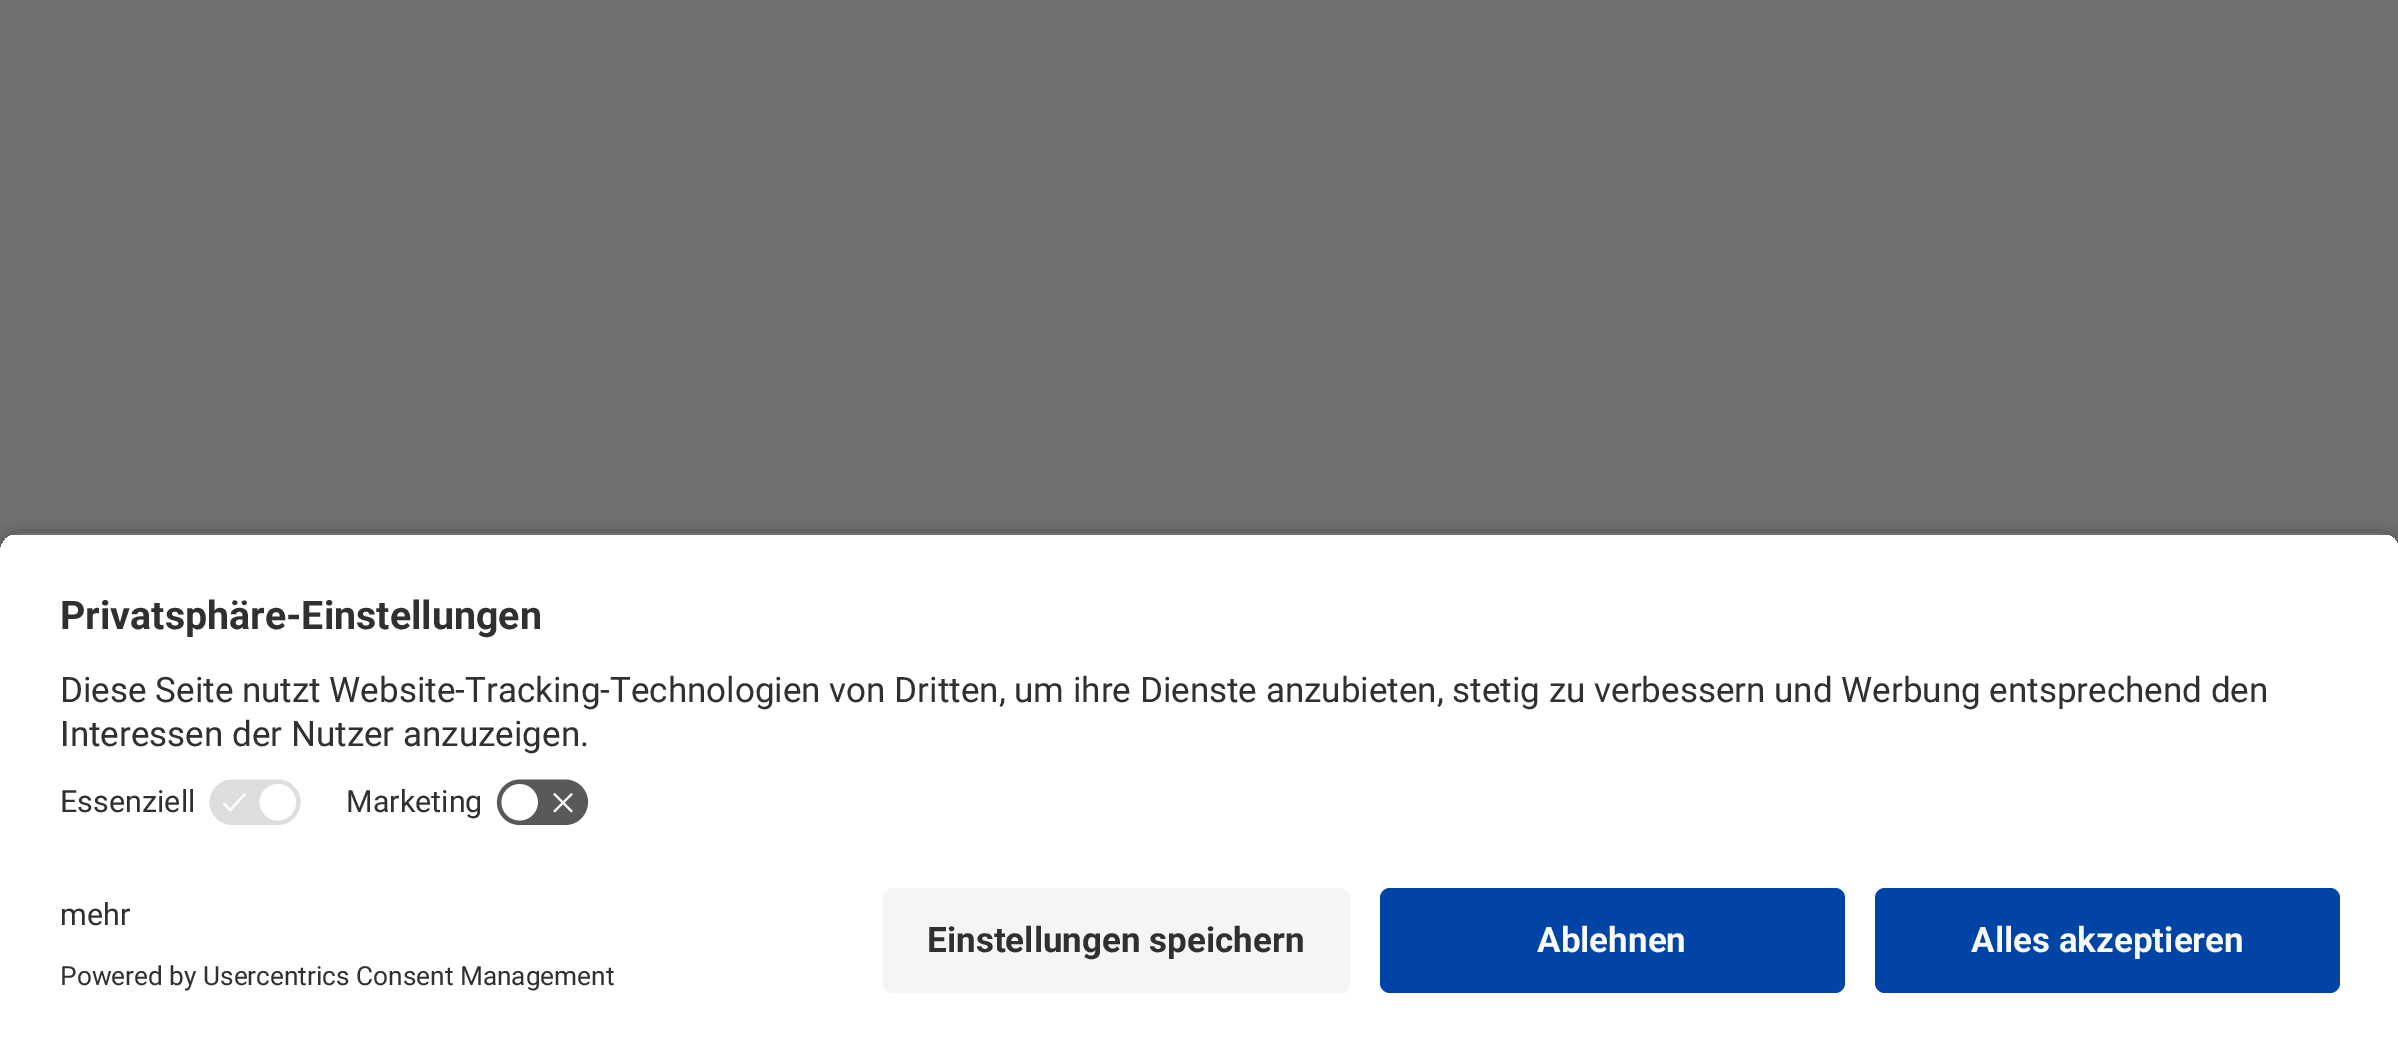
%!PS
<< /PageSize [2398 1052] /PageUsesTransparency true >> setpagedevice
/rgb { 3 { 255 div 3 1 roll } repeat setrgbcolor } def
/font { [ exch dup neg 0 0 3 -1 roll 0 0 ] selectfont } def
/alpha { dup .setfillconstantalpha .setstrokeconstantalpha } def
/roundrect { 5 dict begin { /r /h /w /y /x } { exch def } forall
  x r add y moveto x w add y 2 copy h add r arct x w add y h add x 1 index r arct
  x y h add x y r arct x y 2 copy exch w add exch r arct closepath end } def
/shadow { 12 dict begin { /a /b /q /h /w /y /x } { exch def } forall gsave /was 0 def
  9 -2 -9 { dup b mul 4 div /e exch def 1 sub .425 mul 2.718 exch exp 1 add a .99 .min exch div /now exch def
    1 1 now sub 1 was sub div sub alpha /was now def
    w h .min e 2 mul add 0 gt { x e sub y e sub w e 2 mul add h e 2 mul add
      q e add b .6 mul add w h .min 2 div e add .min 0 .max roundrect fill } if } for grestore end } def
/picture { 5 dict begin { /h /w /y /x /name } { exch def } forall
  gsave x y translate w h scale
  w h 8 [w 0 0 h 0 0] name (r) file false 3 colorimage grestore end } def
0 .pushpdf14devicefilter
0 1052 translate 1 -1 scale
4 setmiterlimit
112 112 112 rgb
0 0 2398 1052 rectfill
gsave
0 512 moveto 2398 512 lineto 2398 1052 lineto 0 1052 lineto closepath 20 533 moveto 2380 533 lineto 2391 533 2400 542 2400 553 curveto 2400 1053 lineto 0 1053 lineto 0 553 lineto 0 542 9 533 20 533 curveto closepath eoclip newpath
0 0 0 rgb
0 540 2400 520 20 9 0.8 shadow
grestore
gsave
20 533 moveto 2380 533 lineto 2391 533 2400 542 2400 553 curveto 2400 868 lineto 0 868 lineto 0 553 lineto 0 542 9 533 20 533 curveto closepath clip newpath
255 255 255 rgb
0 535 2398 333 rectfill
0 535 2398 233 rectfill
grestore
(img/1.rgb) 209 779 92 46 picture
(img/2.rgb) 496 779 93 47 picture
255 255 255 rgb
0 868 2398 184 rectfill
245 245 245 rgb
883 888 467 105 10 roundrect fill
0 69 165 rgb
1380 888 465 105 10 roundrect fill
1875 888 465 105 10 roundrect fill
/Roboto-Bold 39.4 font
48 48 48 rgb
60 629 moveto (Privatsphäre-Einstellungen) show
/Roboto-Regular 35 font
60 702 moveto (Diese Seite nutzt Website-Tracking-Technologien von Dritten, um ihre Dienste anzubieten, stetig zu verbessern und Werbung entsprechend den) show
60 746 moveto (Interessen der Nutzer anzuzeigen.) show
/Roboto-Regular 30.5 font
[
  [(Essenziell) 60 812]
  [(Marketing) 346 812]
  [(mehr) 60 925]
] { aload pop moveto show } forall
/Roboto-Regular 26.25 font
60 985 moveto (Powered by Usercentrics Consent Management) show
/Roboto-Bold 35 font
927 952 moveto (Einstellungen speichern) show
250 250 250 rgb
1537 952 moveto (Ablehnen) show
1971 952 moveto (Alles akzeptieren) show
.poppdf14devicefilter showpage
